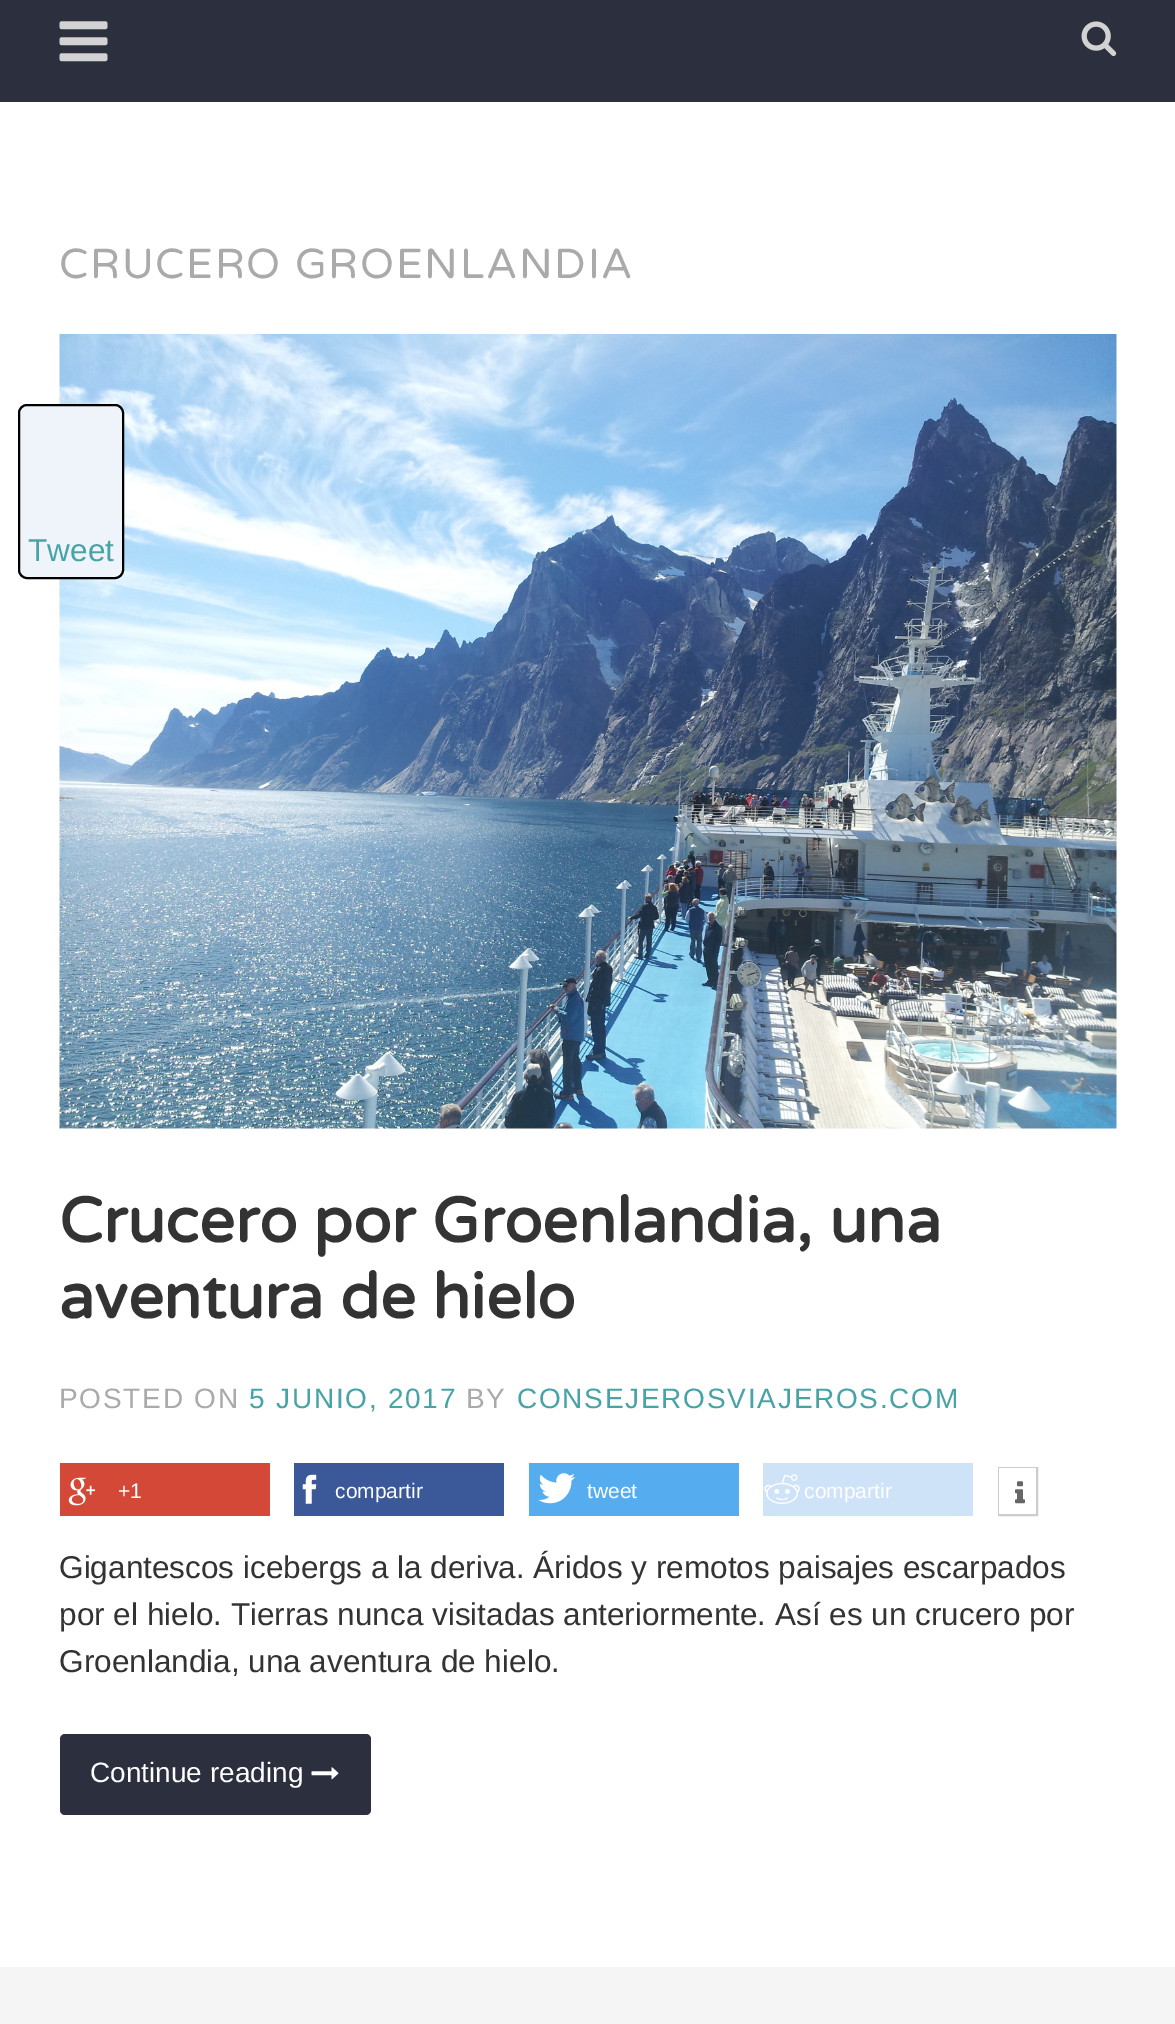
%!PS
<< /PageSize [1175 2024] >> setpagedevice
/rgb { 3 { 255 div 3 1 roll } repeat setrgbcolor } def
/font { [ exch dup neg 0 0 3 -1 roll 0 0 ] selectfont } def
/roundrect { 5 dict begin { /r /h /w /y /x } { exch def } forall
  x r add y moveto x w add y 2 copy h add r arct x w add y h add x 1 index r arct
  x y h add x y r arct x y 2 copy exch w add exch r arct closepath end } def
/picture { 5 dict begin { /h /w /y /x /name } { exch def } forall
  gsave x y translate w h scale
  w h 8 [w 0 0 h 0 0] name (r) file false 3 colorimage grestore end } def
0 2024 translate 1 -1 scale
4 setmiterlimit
255 255 255 rgb
0 0 1175 2024 rectfill
43 47 62 rgb
0 0 1175 102 rectfill
(img/1.rgb) 59 21 49 41 picture
(img/2.rgb) 1081 21 36 36 picture
(img/3.rgb) 59 334 1058 795 picture
211 72 54 rgb
60 1463 210 53 rectfill
(img/4.rgb) 68 1477 28 29 picture
59 89 152 rgb
294 1463 210 53 rectfill
(img/5.rgb) 302 1474 15 30 picture
85 172 238 rgb
529 1463 210 53 rectfill
(img/6.rgb) 538 1473 37 31 picture
206 227 248 rgb
763 1463 210 53 rectfill
(img/7.rgb) 764 1474 36 30 picture
204 204 204 rgb
2 setlinewidth
999 1468 38 47 rectstroke
255 255 255 rgb
999 1468 37 46 rectfill
(img/8.rgb) 1015 1481 10 23 picture
43 47 62 rgb
60 1734 311 81 5 roundrect fill
(img/9.rgb) 311 1767 28 13 picture
245 245 245 rgb
0 1967 1175 57 rectfill
239 243 250 rgb
19 405 104 173 8 roundrect gsave fill grestore
0 0 0 rgb
stroke
/VarelaRound-Regular 42 font
170 170 170 rgb
59 278 moveto 1.75 0 (CRUCERO GROENLANDIA) ashow
/VarelaRound-Bold 63 font
51 51 51 rgb
59 1242 moveto (Crucero por Groenlandia, una) show
59 1318 moveto (aventura de hielo) show
/LiberationSans-Regular 28 font
170 170 170 rgb
59 1408 moveto 1.75 0 (POSTED ON) ashow
72 163 166 rgb
249 1408 moveto 1.75 0 (5 JUNIO, 2017) ashow
170 170 170 rgb
466 1408 moveto 1.75 0 (BY) ashow
72 163 166 rgb
517 1408 moveto 1.75 0 (CONSEJEROSVIAJEROS.COM) ashow
/LiberationSans-Regular 21 font
255 255 255 rgb
[
  [(+1) 118 1498]
  [(compartir) 335 1498]
  [(tweet) 587 1498]
  [(compartir) 804 1498]
] { aload pop moveto show } forall
/LiberationSans-Regular 31.5 font
51 51 51 rgb
[
  [(Gigantescos icebergs a la deriva. Áridos y remotos paisajes escarpados) 59 1578]
  [(por el hielo. Tierras nunca visitadas anteriormente. Así es un crucero por) 59 1625]
  [(Groenlandia, una aventura de hielo.) 59 1672]
] { aload pop moveto show } forall
/LiberationSans-Regular 28 font
255 255 255 rgb
90 1782 moveto (Continue reading) show
/LiberationSans-Regular 31.5 font
72 163 166 rgb
28 561 moveto (Tweet) show
showpage
